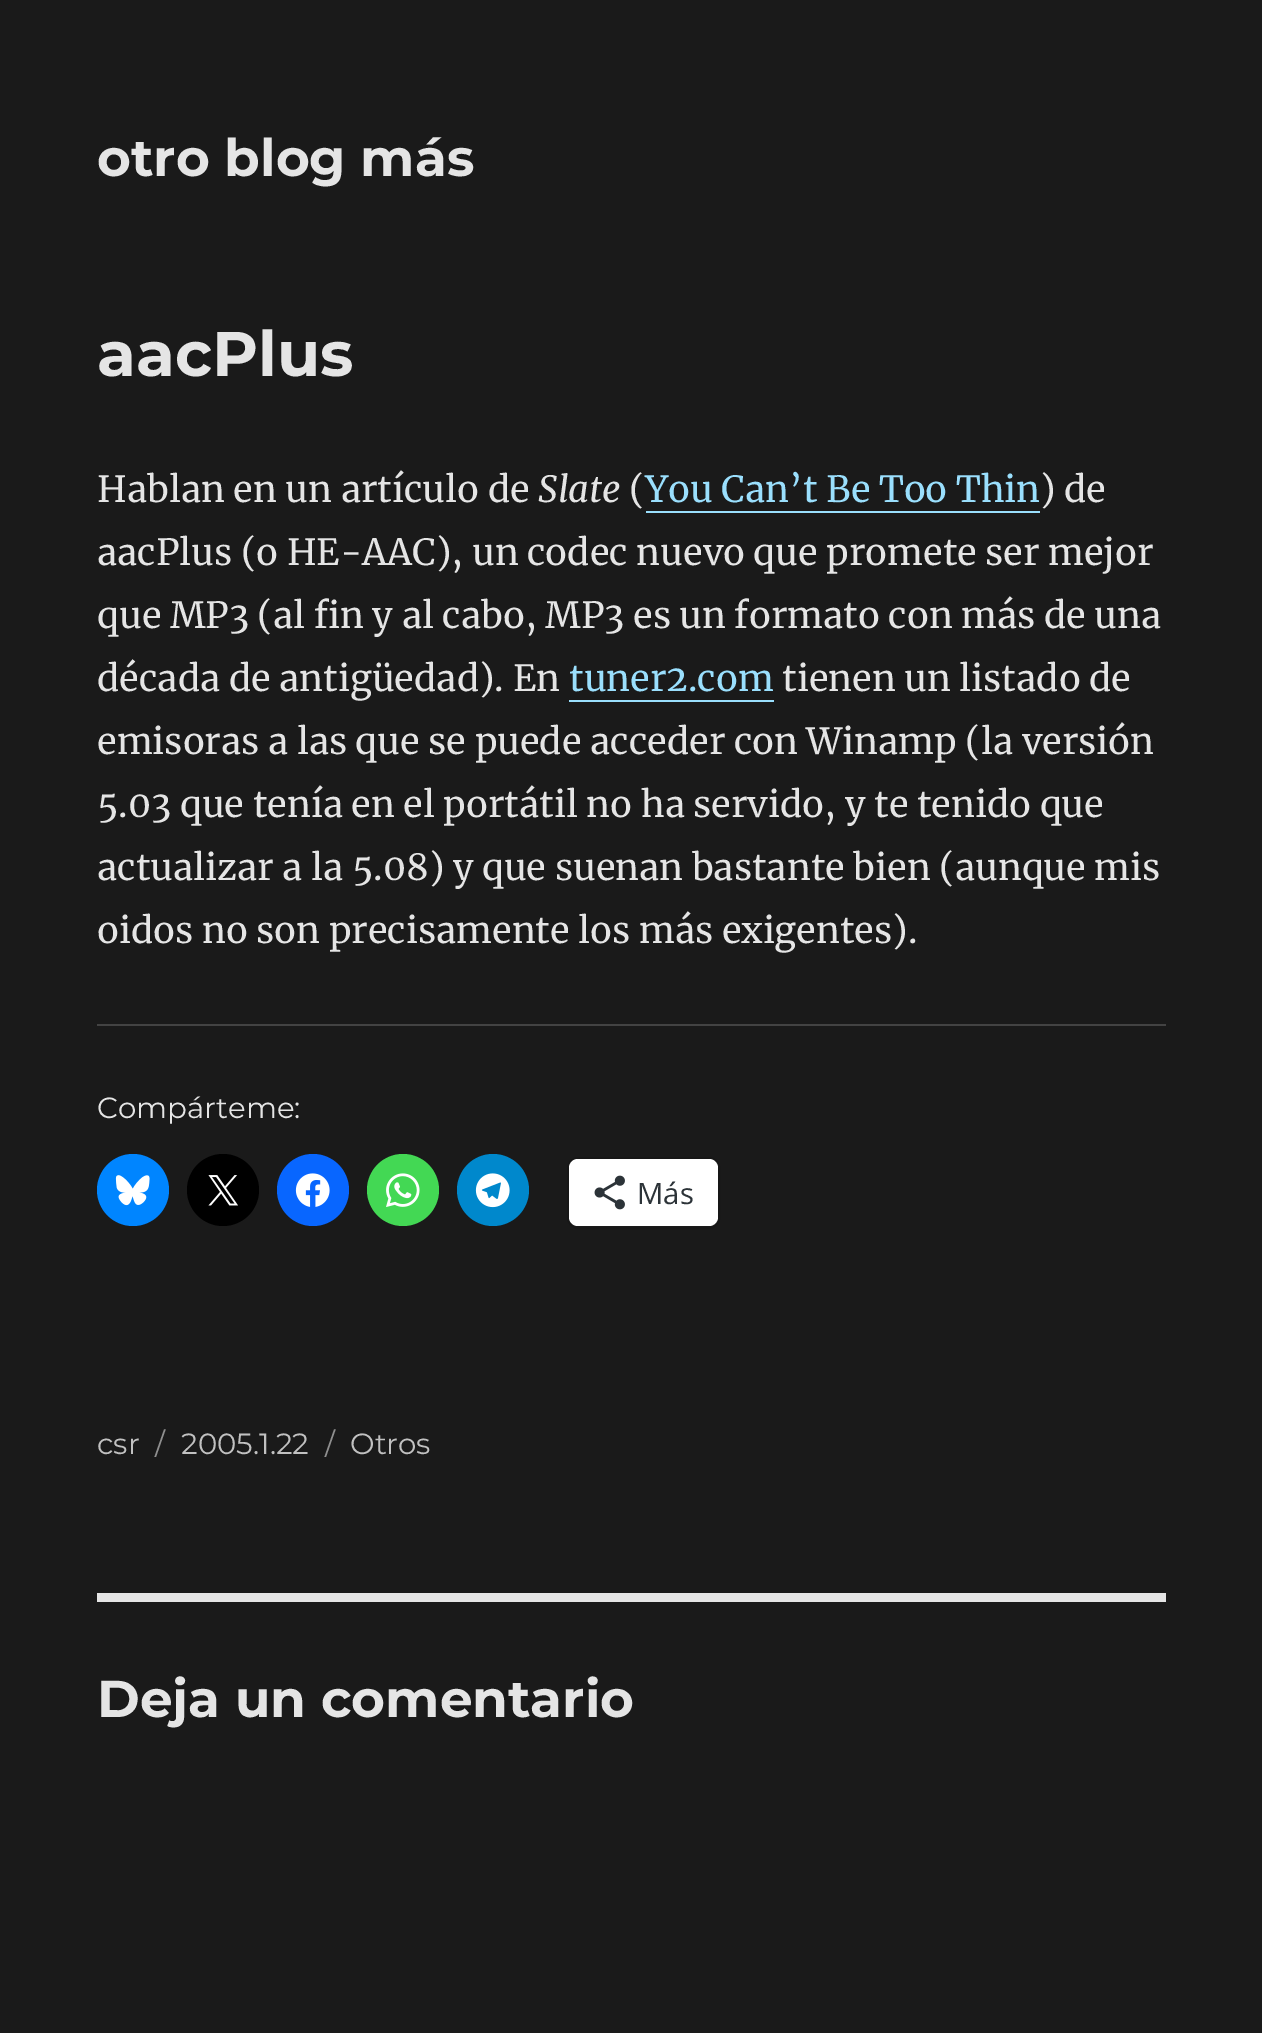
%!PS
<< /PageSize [1262 2033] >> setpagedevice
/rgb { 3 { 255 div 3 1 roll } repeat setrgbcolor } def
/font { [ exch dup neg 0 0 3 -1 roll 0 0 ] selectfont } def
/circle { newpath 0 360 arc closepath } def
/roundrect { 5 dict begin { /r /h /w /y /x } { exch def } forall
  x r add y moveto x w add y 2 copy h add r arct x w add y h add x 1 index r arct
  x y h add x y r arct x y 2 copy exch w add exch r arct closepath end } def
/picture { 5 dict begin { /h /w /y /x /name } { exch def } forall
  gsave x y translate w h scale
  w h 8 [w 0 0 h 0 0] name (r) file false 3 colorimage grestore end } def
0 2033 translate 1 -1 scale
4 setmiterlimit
26 26 26 rgb
0 0 1262 2033 rectfill
154 223 253 rgb
646 511 moveto 646 513 lineto 1040 513 lineto 1040 468 lineto 1040 511 lineto closepath fill
569 657 moveto 569 702 lineto 774 702 lineto 774 700 lineto 569 700 lineto closepath fill
67 67 67 rgb
97 1024 1069 2 rectfill
0 133 255 rgb
133 1190 36 circle fill
(img/1.rgb) 115 1175 35 31 picture
0 0 0 rgb
223 1190 36 circle fill
(img/2.rgb) 208 1175 30 31 picture
8 102 255 rgb
313 1190 36 circle fill
(img/3.rgb) 295 1173 35 34 picture
67 216 84 rgb
403 1190 36 circle fill
(img/4.rgb) 386 1173 34 34 picture
0 136 204 rgb
493 1190 36 circle fill
(img/5.rgb) 475 1173 35 35 picture
23 23 23 rgb
2 setlinewidth
568 1158 151 70 10 roundrect stroke
255 255 255 rgb
569 1159 149 67 9 roundrect fill
(img/6.rgb) 594 1175 31 35 picture
229 229 229 rgb
97 1593 1069 9 rectfill
/Montserrat-Thin 51.75 font
97 176 moveto (otro blog más) show
/Montserrat-Thin 63 font
97 376 moveto (aacPlus) show
/Merriweather-Regular 36 font
97 502 moveto (Hablan en un artículo de) show
/Merriweather-Italic 36 font
538 502 moveto (Slate) show
/Merriweather-Regular 36 font
629 502 moveto (\() show
154 223 253 rgb
645 502 moveto (You Can’t Be Too Thin) show
229 229 229 rgb
[
  [(\) de) 1040 502]
  [(aacPlus \(o HE-AAC\), un codec nuevo que promete ser mejor) 97 565]
  [(que MP3 \(al fin y al cabo, MP3 es un formato con más de una) 97 628]
  [(década de antigüedad\). En) 97 691]
] { aload pop moveto show } forall
154 223 253 rgb
569 691 moveto (tuner2.com) show
229 229 229 rgb
[
  [(tienen un listado de) 782 691]
  [(emisoras a las que se puede acceder con Winamp \(la versión) 97 754]
  [(5.03 que tenía en el portátil no ha servido, y te tenido que) 97 817]
  [(actualizar a la 5.08\) y que suenan bastante bien \(aunque mis) 97 880]
  [(oidos no son precisamente los más exigentes\).) 97 943]
] { aload pop moveto show } forall
/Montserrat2-Thin 29.25 font
97 1118 moveto (Compárteme:) show
/OpenSans-Regular 29.25 font
44 51 56 rgb
637 1204 moveto (Más) show
/Montserrat2-Thin 29.25 font
193 193 193 rgb
97 1454 moveto (csr) show
143 143 143 rgb
155 1454 moveto (/) show
193 193 193 rgb
181 1454 moveto (2005.1.22) show
143 143 143 rgb
325 1454 moveto (/) show
193 193 193 rgb
350 1454 moveto (Otros) show
/Montserrat-Thin 51.75 font
229 229 229 rgb
97 1717 moveto (Deja un comentario) show
showpage
